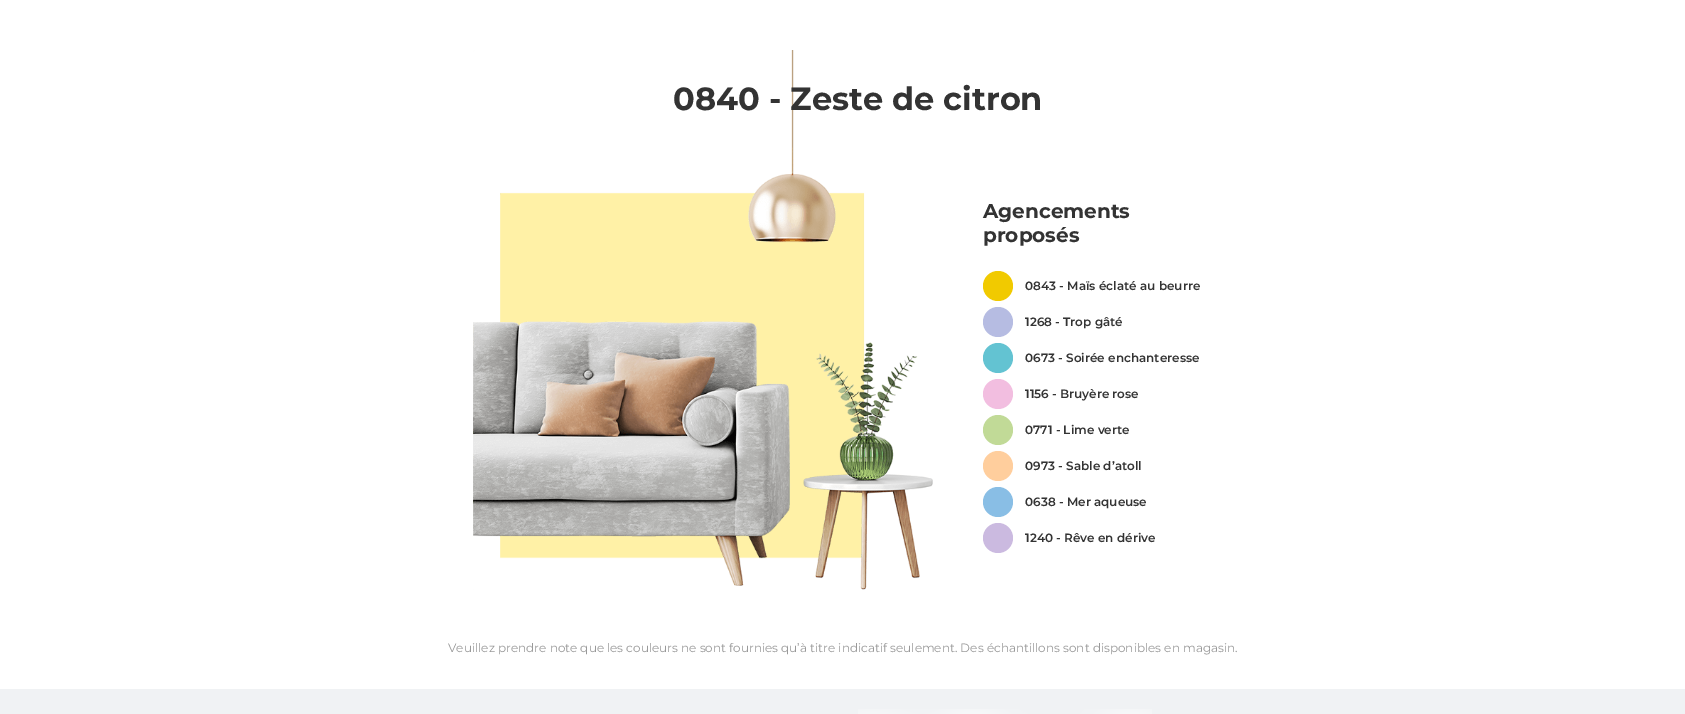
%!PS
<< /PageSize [1685 714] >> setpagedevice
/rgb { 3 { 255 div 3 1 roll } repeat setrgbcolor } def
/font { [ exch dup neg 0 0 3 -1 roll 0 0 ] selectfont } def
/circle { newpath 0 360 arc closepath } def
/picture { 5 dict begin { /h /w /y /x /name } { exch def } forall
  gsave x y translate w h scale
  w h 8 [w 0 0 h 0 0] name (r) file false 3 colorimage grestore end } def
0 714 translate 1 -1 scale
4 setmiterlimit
240 242 244 rgb
0 0 1685 714 rectfill
255 255 255 rgb
0 0 1685 689 rectfill
255 241 166 rgb
475 173 452 406 rectfill
(img/1.rgb) 473 50 460 540 picture
241 202 0 rgb
998 286 15 circle fill
182 188 226 rgb
998 322 15 circle fill
99 195 210 rgb
998 358 15 circle fill
242 190 224 rgb
998 394 15 circle fill
193 218 151 rgb
998 430 15 circle fill
255 206 157 rgb
998 466 15 circle fill
137 190 229 rgb
998 502 15 circle fill
203 186 224 rgb
998 538 15 circle fill
(img/2.rgb) 858 709 294 5 picture
/Montserrat-Bold 32 font
51 51 51 rgb
673 110 moveto (0840 - Zeste de citron) show
/Montserrat-Bold 20 font
983 218 moveto (Agencements) show
983 242 moveto (proposés) show
/Montserrat-SemiBold 12 font
[
  [(0843 - Maïs éclaté au beurre) 1025 290]
  [(1268 - Trop gâté) 1025 326]
  [(0673 - Soirée enchanteresse) 1025 362]
  [(1156 - Bruyère rose) 1025 398]
  [(0771 - Lime verte) 1025 434]
  [(0973 - Sable d’atoll) 1025 470]
  [(0638 - Mer aqueuse) 1025 506]
  [(1240 - Rêve en dérive) 1025 542]
] { aload pop moveto show } forall
/Montserrat-Regular 12 font
153 153 153 rgb
448 652 moveto (Veuillez prendre note que les couleurs ne sont fournies qu’à titre indicatif seulement. Des échantillons sont disponibles en magasin.) show
showpage
